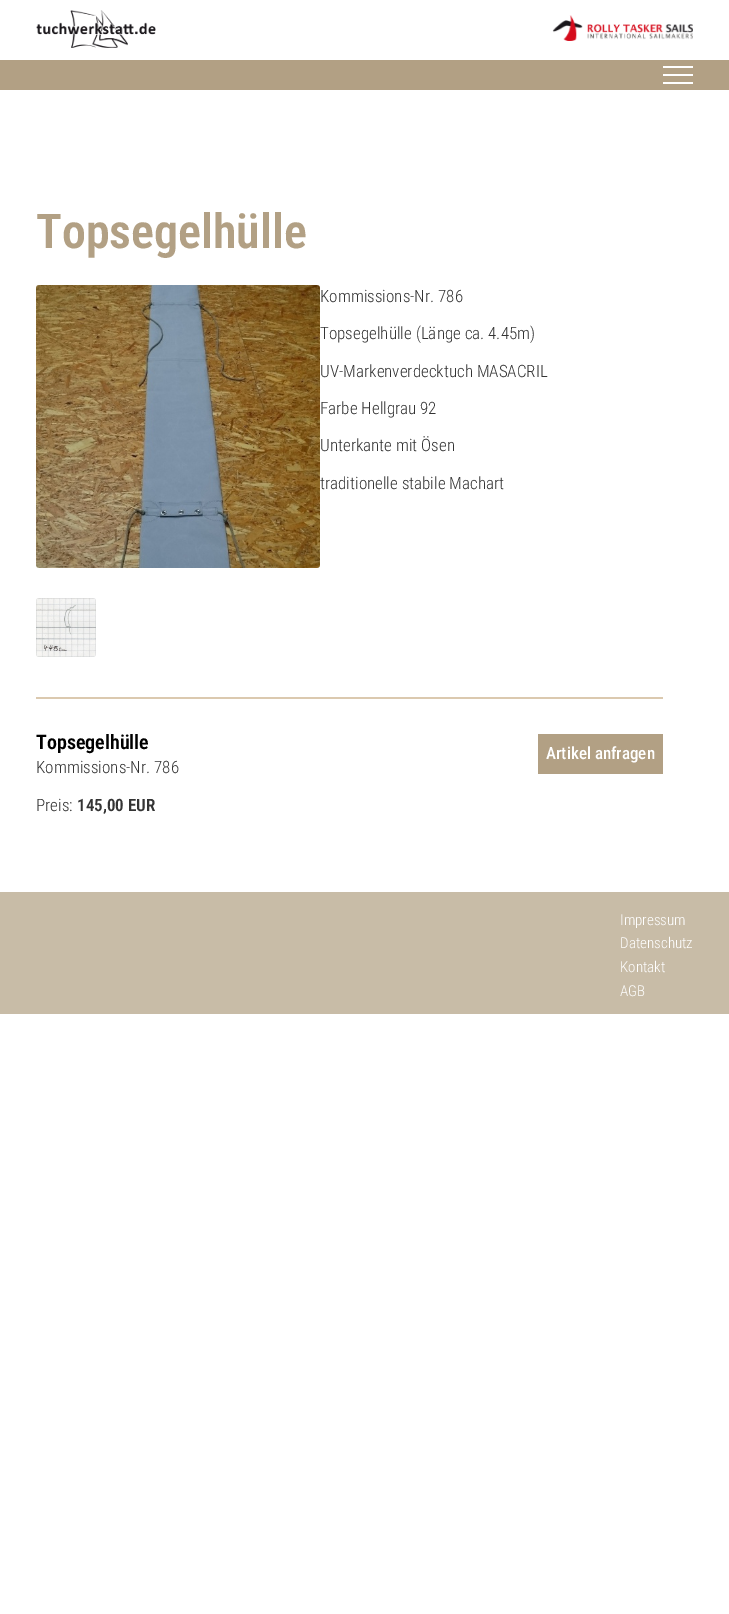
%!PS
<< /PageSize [729 1614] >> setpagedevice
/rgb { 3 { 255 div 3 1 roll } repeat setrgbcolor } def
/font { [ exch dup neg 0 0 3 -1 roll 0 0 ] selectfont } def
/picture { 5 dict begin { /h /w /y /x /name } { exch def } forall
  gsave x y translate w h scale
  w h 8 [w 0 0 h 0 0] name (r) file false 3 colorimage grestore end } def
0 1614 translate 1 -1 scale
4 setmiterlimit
255 255 255 rgb
0 0 729 1614 rectfill
(img/1.rgb) 36 10 120 38 picture
(img/2.rgb) 552 15 141 26 picture
[
  [0 60 729 30 178 160 132]
  [663 66 30 2 255 255 255]
  [663 74 30 2 255 255 255]
  [663 82 30 2 255 255 255]
] { aload pop rgb rectfill } forall
(img/3.rgb) 36 285 284 283 picture
(img/4.rgb) 36 598 60 59 picture
[
  [36 697 627 2 219 201 175]
  [538 734 125 40 178 160 132]
  [0 892 729 122 200 188 167]
] { aload pop rgb rectfill } forall
/RobotoCondensed-SemiBold 48 font
178 160 132 rgb
36 248 moveto (Topsegelhülle) show
/RobotoCondensed-Light 17 font
52 52 52 rgb
[
  [(Kommissions-Nr. 786) 320 302]
  [(Topsegelhülle \(Länge ca. 4.45m\)) 320 339]
  [(UV-Markenverdecktuch MASACRIL) 320 377]
  [(Farbe Hellgrau 92) 320 414]
  [(Unterkante mit Ösen) 320 451]
  [(traditionelle stabile Machart) 320 489]
] { aload pop moveto show } forall
/RobotoCondensed-SemiBold 20 font
0 0 0 rgb
36 749 moveto (Topsegelhülle) show
/RobotoCondensed-Medium 17 font
255 255 255 rgb
546 759 moveto (Artikel anfragen) show
/RobotoCondensed-Light 17 font
52 52 52 rgb
36 773 moveto (Kommissions-Nr. 786) show
36 811 moveto (Preis:) show
/RobotoCondensed-SemiBold 17 font
77 811 moveto (145,00 EUR) show
/RobotoCondensed-Light 15 font
255 255 255 rgb
[
  [(Impressum) 620 925]
  [(Datenschutz) 620 948]
  [(Kontakt) 620 972]
  [(AGB) 620 996]
] { aload pop moveto show } forall
showpage
